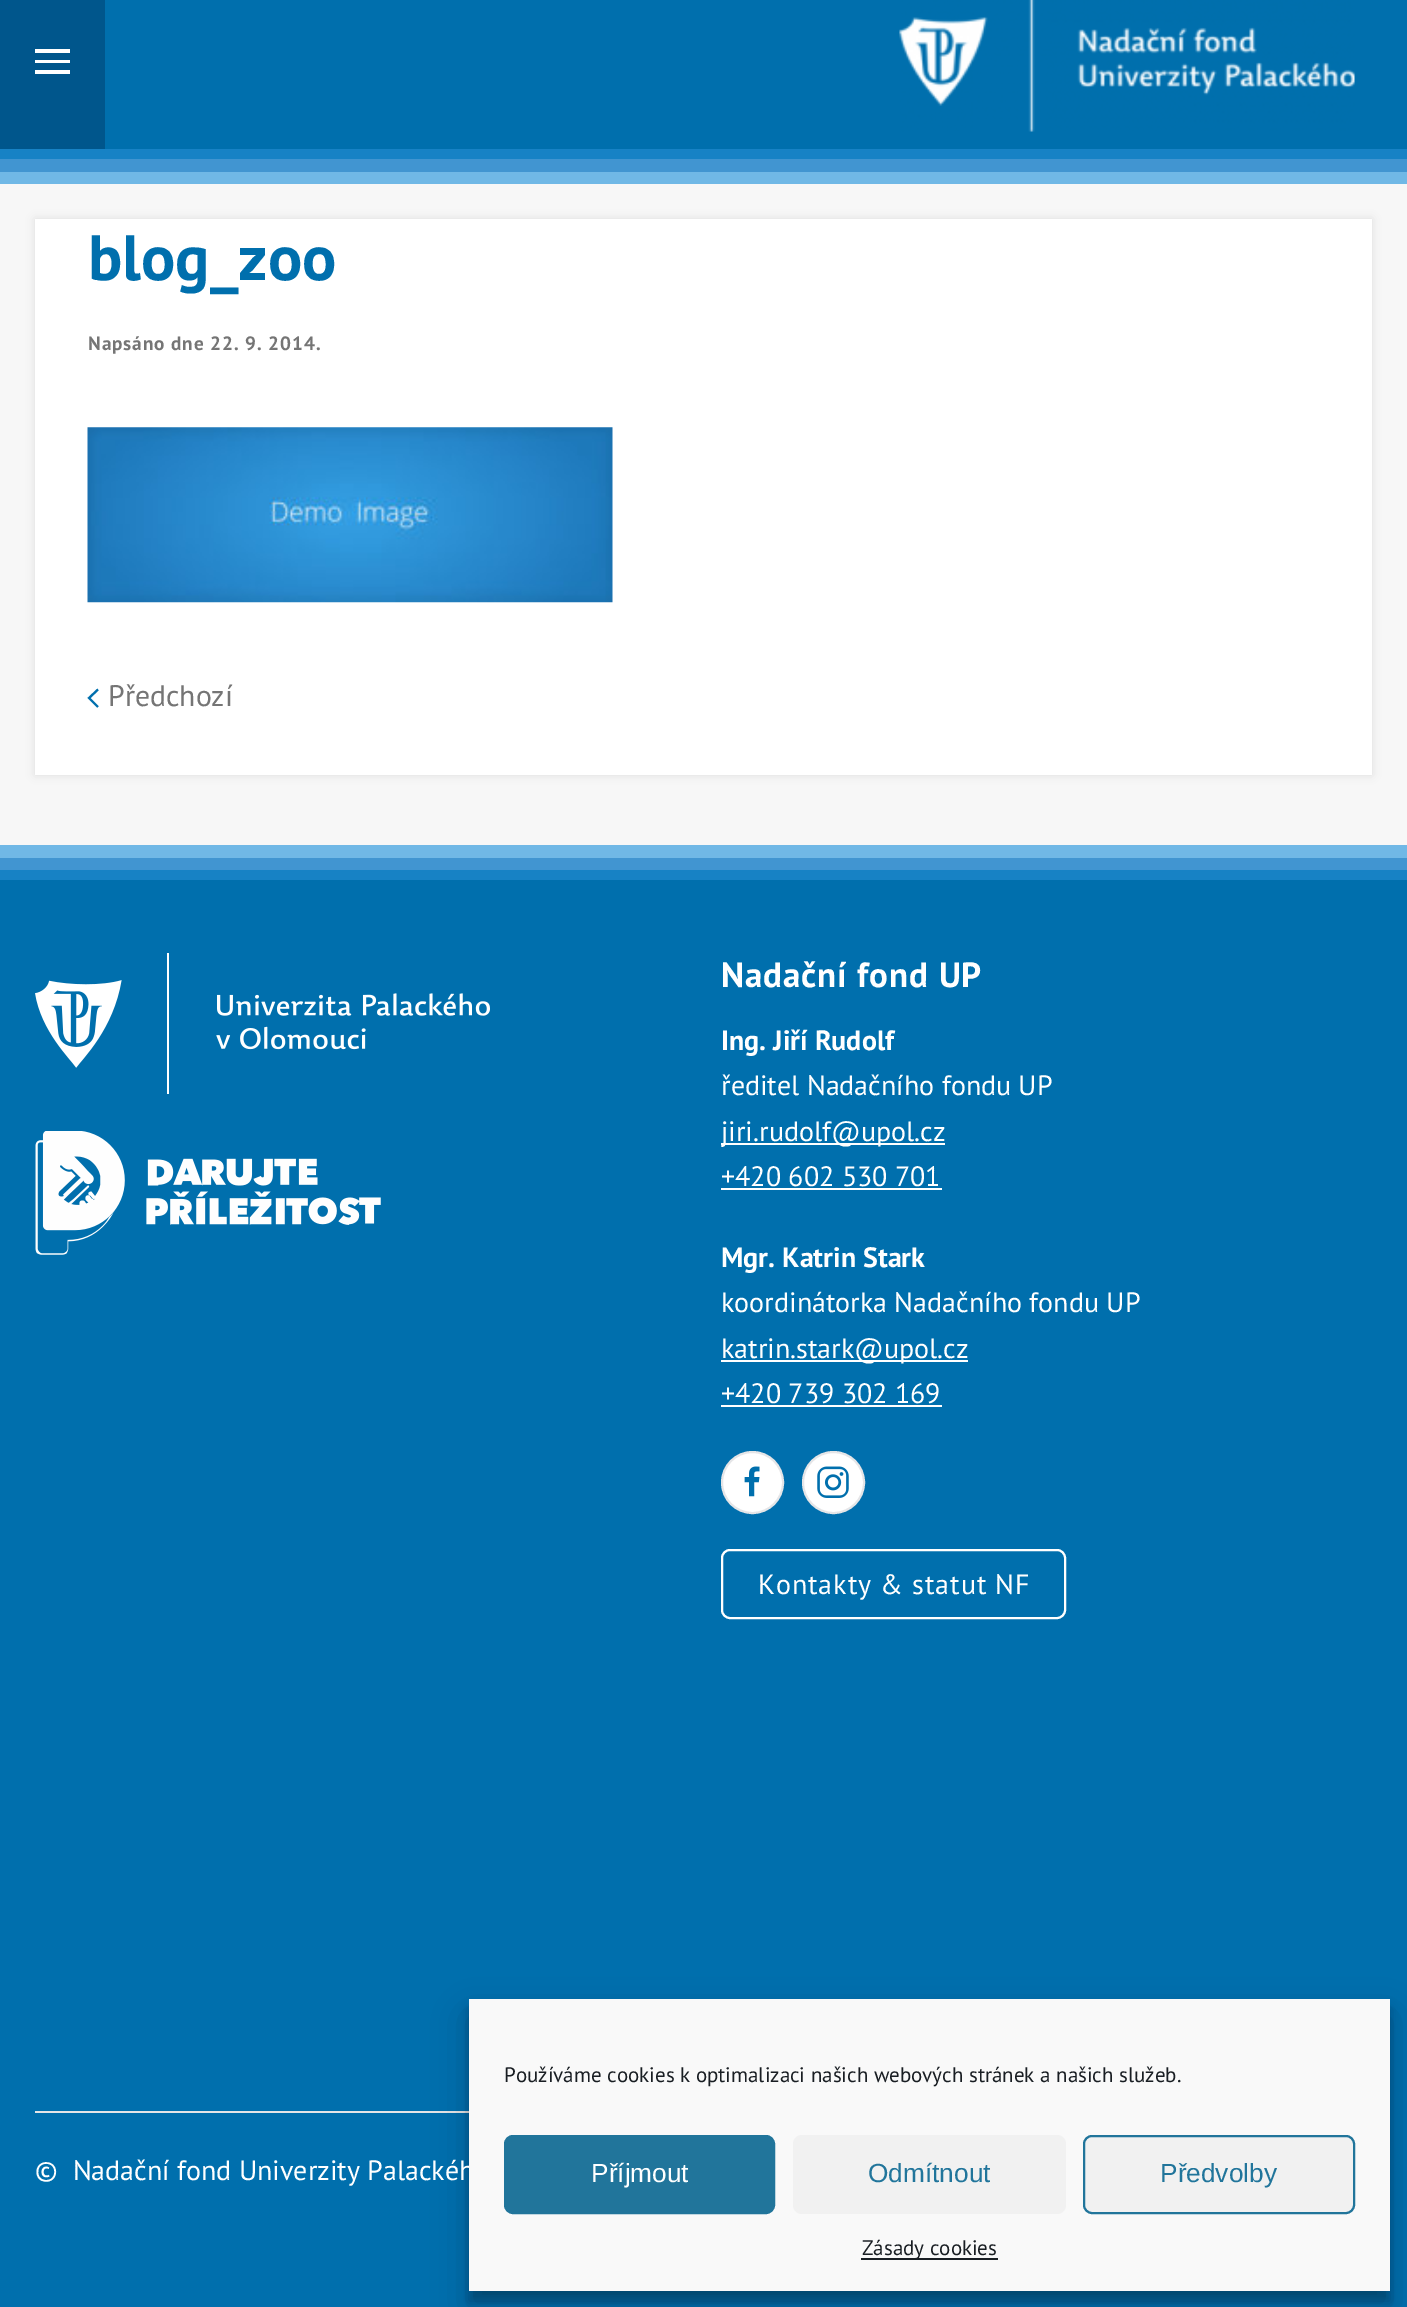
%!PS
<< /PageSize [1407 2307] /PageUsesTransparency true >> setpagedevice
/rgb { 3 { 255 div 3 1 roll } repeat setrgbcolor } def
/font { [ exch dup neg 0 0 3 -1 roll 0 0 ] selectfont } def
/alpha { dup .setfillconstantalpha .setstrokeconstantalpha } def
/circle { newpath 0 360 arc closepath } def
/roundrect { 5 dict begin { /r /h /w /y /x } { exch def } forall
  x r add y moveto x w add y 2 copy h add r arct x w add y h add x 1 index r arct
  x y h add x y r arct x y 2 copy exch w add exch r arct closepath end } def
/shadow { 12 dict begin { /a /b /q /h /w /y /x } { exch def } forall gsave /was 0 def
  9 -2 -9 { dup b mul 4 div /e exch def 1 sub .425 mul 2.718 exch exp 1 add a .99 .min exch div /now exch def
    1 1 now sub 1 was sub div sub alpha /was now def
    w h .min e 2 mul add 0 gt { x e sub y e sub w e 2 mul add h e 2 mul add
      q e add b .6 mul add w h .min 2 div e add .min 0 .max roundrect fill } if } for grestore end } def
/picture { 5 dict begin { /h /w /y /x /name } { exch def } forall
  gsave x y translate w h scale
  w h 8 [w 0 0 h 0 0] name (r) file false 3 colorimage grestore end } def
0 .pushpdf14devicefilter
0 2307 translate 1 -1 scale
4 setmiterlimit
0 111 173 rgb
0 0 1407 2307 rectfill
[
  [0 0 105 149 0 86 140]
  [35 49 35 4 255 255 255]
  [35 60 35 3 255 255 255]
  [35 70 35 4 255 255 255]
] { aload pop rgb rectfill } forall
(img/1.rgb) 899 0 456 132 picture
[
  [0 149 1407 10 23 130 197]
  [0 159 1407 13 65 149 209]
  [0 172 1407 12 112 184 230]
  [0 184 1407 661 247 247 247]
] { aload pop rgb rectfill } forall
0 0 0 rgb
35 219 1337 556 0 4.5 0.1 shadow
255 255 255 rgb
35 219 1337 556 rectfill
(img/2.rgb) 87 427 526 176 picture
0 111 173 rgb
2.1 setlinewidth
98 689.5 moveto 89 698 lineto 98 707 lineto stroke
[
  [0 870 1407 10 23 130 197]
  [0 858 1407 12 65 149 209]
  [0 845 1407 13 112 184 230]
] { aload pop rgb rectfill } forall
(img/3.rgb) 35 953 455 141 picture
(img/4.rgb) 35 1131 346 124 picture
[
  [721 1143 224 2 255 255 255]
  [721 1188 221 2 255 255 255]
  [721 1360 247 2 255 255 255]
  [721 1405 221 2 255 255 255]
] { aload pop rgb rectfill } forall
752.5 1482.5 30.5 circle gsave fill grestore
229 229 231 rgb
2 setlinewidth
stroke
(img/5.rgb) 744 1466 16 31 picture
255 255 255 rgb
833.5 1482.5 30.5 circle gsave fill grestore
229 229 231 rgb
stroke
(img/6.rgb) 817 1466 32 32 picture
255 255 255 rgb
722 1550 343 68 8 roundrect stroke
229 229 231 rgb
35 2111 434 2 rectfill
0 0 0 rgb
469 2009 921 292 0 5 0.23 shadow
469 2016 921 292 0 17.5 0.19 shadow
/PTSans-Bold 64 font
0 111 173 rgb
88 280 moveto (blog_zoo) show
/PTSans-Bold 19.25 font
117 117 117 rgb
88 350 moveto 0.9 0 (Napsáno dne 22. 9. 2014.) ashow
/PTSans-Regular 29.75 font
108 706 moveto (Předchozí) show
/PTSans-Bold 35 font
255 255 255 rgb
721 987 moveto 0.9 0 (Nadační fond UP) ashow
/PTSans-Bold 28 font
721 1050 moveto (Ing. Jiří Rudolf) show
/PTSans-Regular 28 font
[
  [(ředitel Nadačního fondu UP) 721 1095]
  [(jiri.rudolf@upol.cz) 721 1141]
  [(+420 602 530 701) 721 1186]
] { aload pop moveto show } forall
/PTSans-Bold 28 font
721 1267 moveto (Mgr. Katrin Stark) show
/PTSans-Regular 28 font
[
  [(koordinátorka Nadačního fondu UP) 721 1312]
  [(katrin.stark@upol.cz) 721 1358]
  [(+420 739 302 169) 721 1403]
] { aload pop moveto show } forall
758 1594 moveto 0.9 0 (Kontakty & statut NF) ashow
35 2180 moveto (©  Nadační fond Univerzity Palackéh) show
249 249 249 rgb
469 1999 921 292 rectfill
/PTSans-Regular 21 font
25 30 35 rgb
504 2082 moveto (Používáme cookies k optimalizaci našich webových stránek a našich služeb.) show
33 117 155 rgb
505 2136 269 77 8 roundrect gsave fill grestore
stroke
/LiberationSans-Regular 26.25 font
255 255 255 rgb
591 2182 moveto (Příjmout) show
241 241 241 rgb
793 2135 273 79 9 roundrect fill
33 117 155 rgb
868 2182 moveto (Odmítnout) show
241 241 241 rgb
1084 2136 270 77 8 roundrect gsave fill grestore
33 117 155 rgb
stroke
1160 2182 moveto (Předvolby) show
25 30 35 rgb
861 2258 137 2 rectfill
/PTSans-Regular 21 font
862 2255 moveto (Zásady cookies) show
.poppdf14devicefilter showpage
